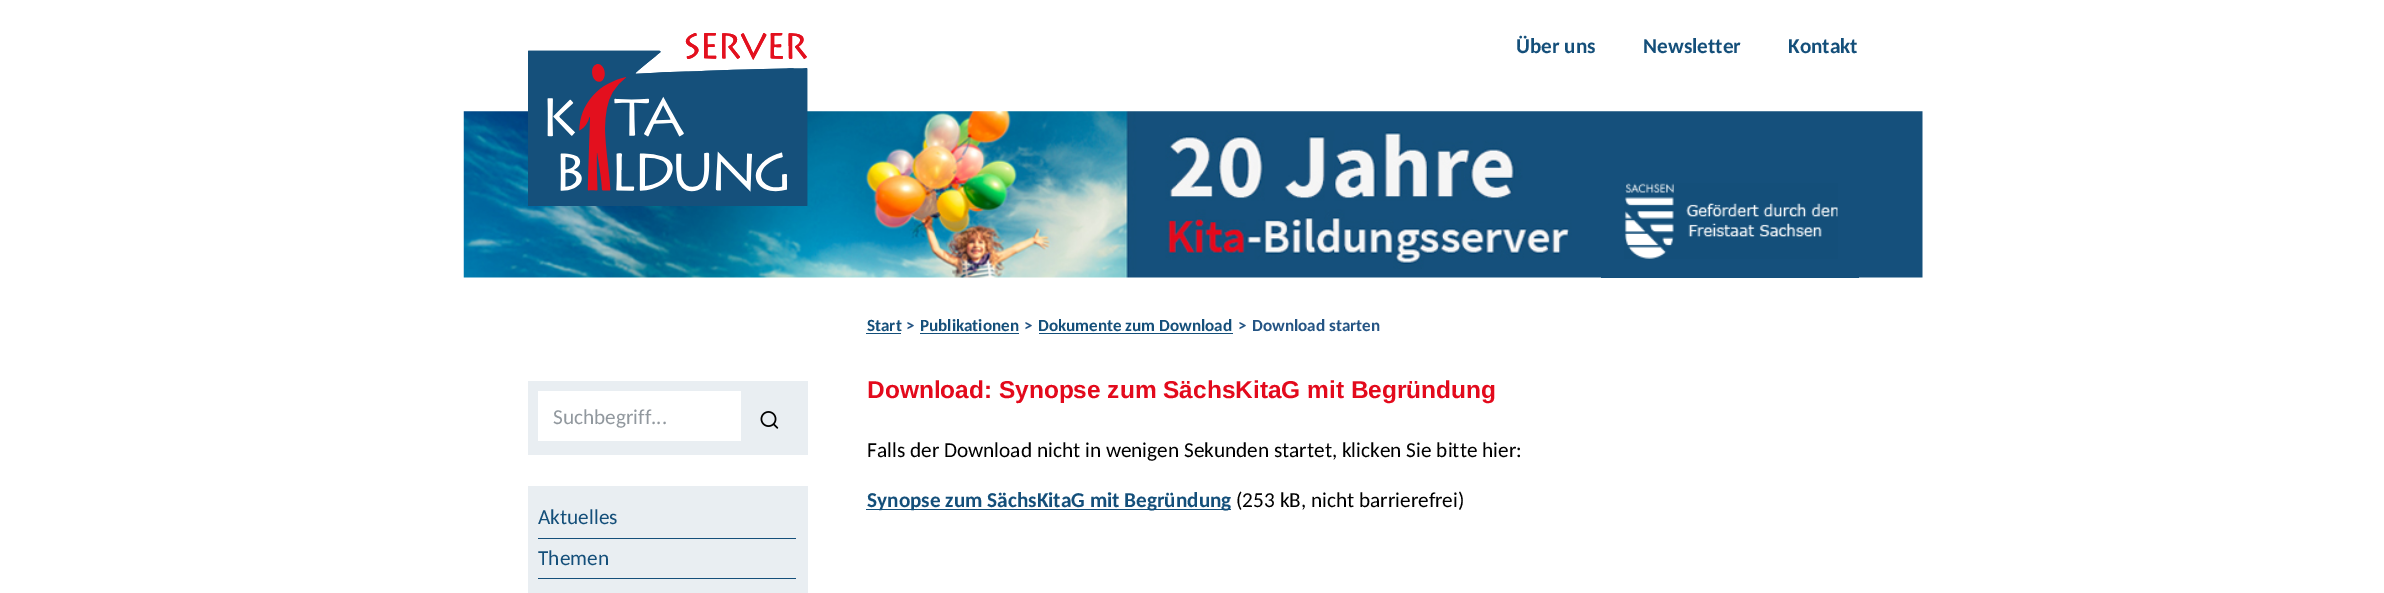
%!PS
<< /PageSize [2384 593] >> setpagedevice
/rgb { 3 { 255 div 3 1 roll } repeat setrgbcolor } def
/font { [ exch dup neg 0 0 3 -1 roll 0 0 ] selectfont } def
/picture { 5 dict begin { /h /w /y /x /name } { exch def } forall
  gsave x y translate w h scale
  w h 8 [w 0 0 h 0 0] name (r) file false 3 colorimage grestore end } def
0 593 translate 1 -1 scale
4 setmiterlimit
255 255 255 rgb
0 0 2384 593 rectfill
(img/2.rgb) 463 111 1460 167 picture
(img/1.rgb) 528 33 280 173 picture
20 79 122 rgb
1601 277 258 1 rectfill
(img/3.rgb) 1624 183 214 76 picture
[
  [866 333 35 1 20 79 122]
  [920 333 99 1 20 79 122]
  [1039 333 194 1 20 79 122]
  [528 381 280 74 233 238 242]
  [538 391 203 50 255 255 255]
] { aload pop rgb rectfill } forall
(img/4.rgb) 760 411 19 18 picture
[
  [528 486 280 107 233 238 242]
  [538 538 258 1 20 79 122]
  [538 578 258 1 20 79 122]
  [866 509 365 1 20 79 122]
] { aload pop rgb rectfill } forall
/Carlito-Bold 21.25 font
[
  [(Über uns) 1516 53]
  [(Newsletter) 1643 53]
  [(Kontakt) 1788 53]
] { aload pop moveto show } forall
/Carlito-Bold 17.1 font
867 331 moveto (Start) show
36 84 132 rgb
906 331 moveto (>) show
20 79 122 rgb
920 331 moveto (Publikationen) show
36 84 132 rgb
1024 331 moveto (>) show
20 79 122 rgb
1038 331 moveto (Dokumente zum Download) show
36 84 132 rgb
1238 331 moveto (>) show
1252 331 moveto (Download starten) show
/Carlito-Regular 21.25 font
145 152 158 rgb
553 424 moveto (Suchbegriff...) show
20 79 122 rgb
538 524 moveto (Aktuelles) show
538 565 moveto (Themen) show
/LiberationSans-Bold 24.45 font
227 10 28 rgb
867 398 moveto (Download: Synopse zum SächsKitaG mit Begründung) show
/Carlito-Regular 21.25 font
0 0 0 rgb
867 457 moveto (Falls der Download nicht in wenigen Sekunden startet, klicken Sie bitte hier:) show
/Carlito-Bold 21.25 font
20 79 122 rgb
867 507 moveto (Synopse zum SächsKitaG mit Begründung) show
/Carlito-Regular 21.25 font
0 0 0 rgb
1236 507 moveto (\(253 kB, nicht barrierefrei\)) show
showpage
